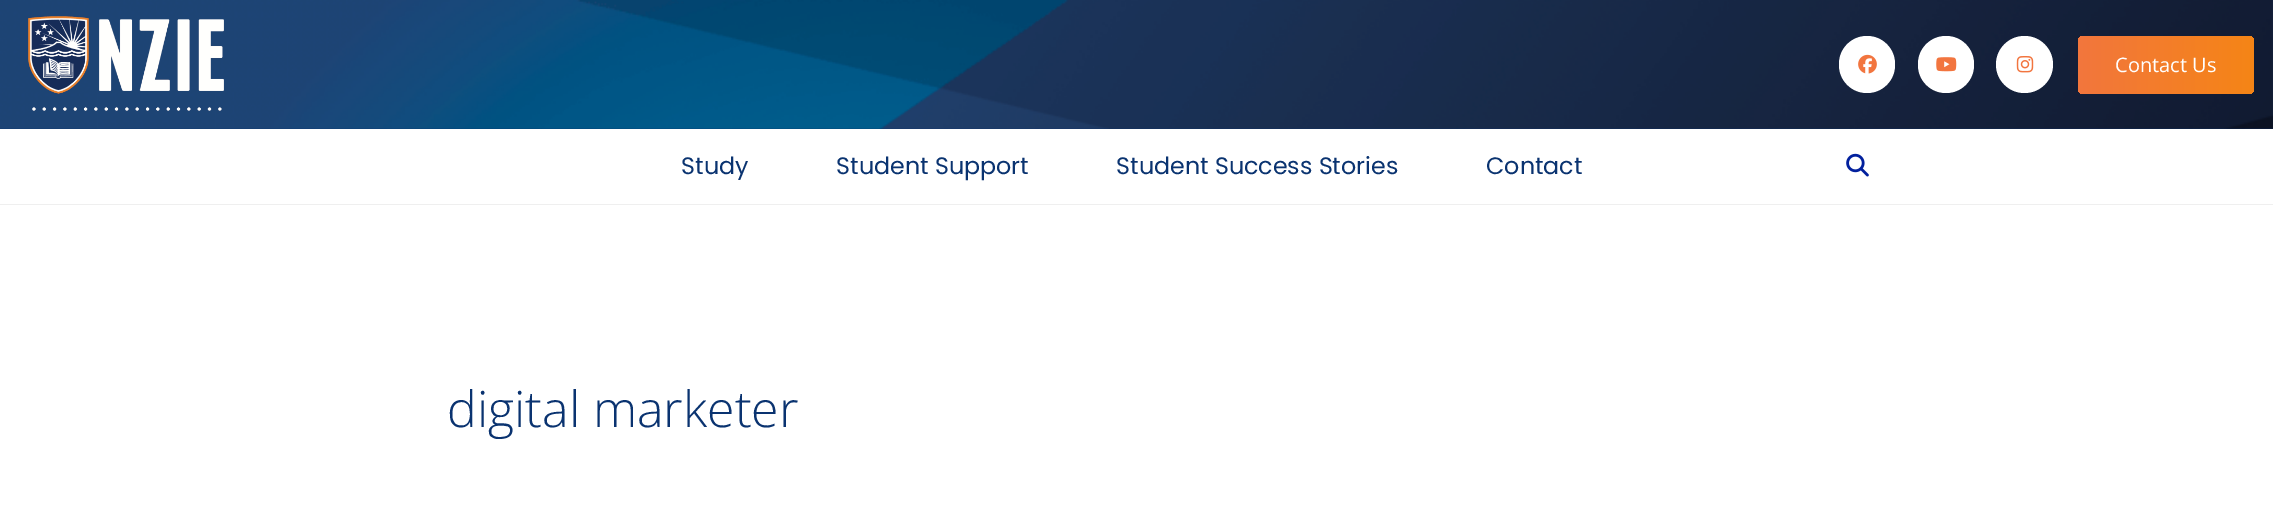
%!PS
<< /PageSize [2273 518] >> setpagedevice
/rgb { 3 { 255 div 3 1 roll } repeat setrgbcolor } def
/font { [ exch dup neg 0 0 3 -1 roll 0 0 ] selectfont } def
/circle { newpath 0 360 arc closepath } def
/roundrect { 5 dict begin { /r /h /w /y /x } { exch def } forall
  x r add y moveto x w add y 2 copy h add r arct x w add y h add x 1 index r arct
  x y h add x y r arct x y 2 copy exch w add exch r arct closepath end } def
/picture { 5 dict begin { /h /w /y /x /name } { exch def } forall
  gsave x y translate w h scale
  w h 8 [w 0 0 h 0 0] name (r) file false 3 colorimage grestore end } def
0 518 translate 1 -1 scale
4 setmiterlimit
255 255 255 rgb
0 0 2273 518 rectfill
(img/1.rgb) 0 0 2273 129 picture
(img/2.rgb) 28 16 196 95 picture
1839 36 56 57 28 roundrect fill
(img/3.rgb) 1858 54 19 20 picture
1918 36 56 57 28 roundrect fill
(img/4.rgb) 1936 57 21 15 picture
2024.5 64.5 28.5 circle fill
(img/5.rgb) 2016 56 18 17 picture
gsave 2078 36 176 58 6 roundrect clip newpath
<< /ShadingType 2 /ColorSpace /DeviceRGB /Coords [2254 65 2067 65] /Extend [true true] /Function << /FunctionType 2 /Domain [0 1] /C0 [0.961 0.522 0.086] /C1 [0.949 0.459 0.247] /N 1 >> >> shfill grestore
239 239 239 rgb
0 204 2273 1 rectfill
(img/6.rgb) 1846 153 23 24 picture
/OpenSans-Regular 20 font
255 255 255 rgb
2115 72 moveto (Contact Us) show
/Poppins-Regular 23.75 font
10 51 112 rgb
[
  [(Study) 681 174]
  [(Student Support) 836 174]
  [(Student Success Stories) 1116 174]
  [(Contact) 1486 174]
] { aload pop moveto show } forall
/OpenSans-Light 50 font
447 427 moveto (digital marketer) show
showpage
